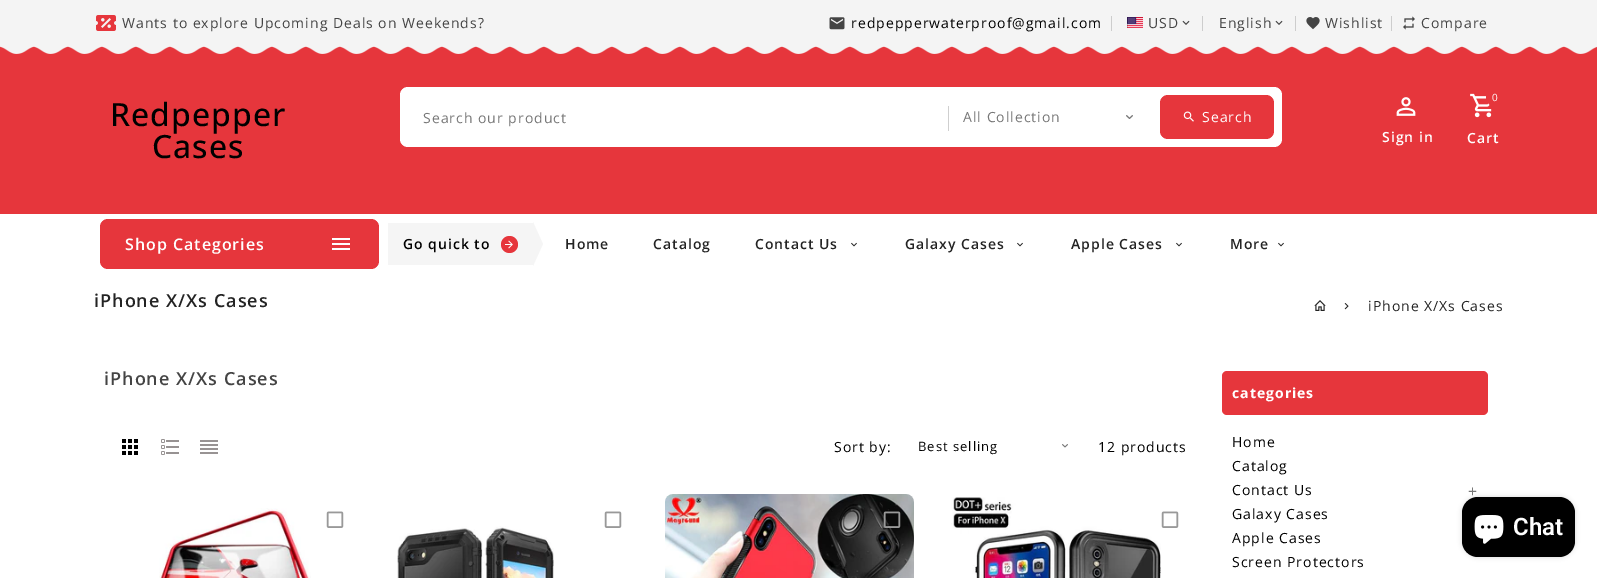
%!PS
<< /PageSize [1597 578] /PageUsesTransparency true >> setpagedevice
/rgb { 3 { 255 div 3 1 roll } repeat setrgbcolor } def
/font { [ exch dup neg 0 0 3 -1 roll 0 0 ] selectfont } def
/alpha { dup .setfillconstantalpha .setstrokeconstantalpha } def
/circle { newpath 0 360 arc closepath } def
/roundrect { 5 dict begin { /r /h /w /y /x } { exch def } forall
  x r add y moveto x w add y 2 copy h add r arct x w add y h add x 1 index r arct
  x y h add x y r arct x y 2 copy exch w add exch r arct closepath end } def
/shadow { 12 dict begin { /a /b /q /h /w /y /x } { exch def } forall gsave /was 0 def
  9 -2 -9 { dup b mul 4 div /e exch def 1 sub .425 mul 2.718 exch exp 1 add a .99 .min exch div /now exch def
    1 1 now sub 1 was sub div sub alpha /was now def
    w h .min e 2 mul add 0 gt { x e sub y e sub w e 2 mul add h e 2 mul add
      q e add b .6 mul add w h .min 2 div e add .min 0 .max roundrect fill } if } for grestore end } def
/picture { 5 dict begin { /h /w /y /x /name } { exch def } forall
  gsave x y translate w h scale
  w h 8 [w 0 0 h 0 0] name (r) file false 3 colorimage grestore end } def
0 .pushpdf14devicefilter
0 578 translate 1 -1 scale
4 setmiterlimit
255 255 255 rgb
0 0 1597 578 rectfill
244 244 244 rgb
0 0 1597 46 rectfill
(img/1.rgb) 96 15 20 16 picture
(img/2.rgb) 829 17 16 13 picture
205 205 205 rgb
1111 16 1 15 rectfill
(img/3.rgb) 1127 17 16 11 picture
(img/4.rgb) 1182 20 8 5 picture
1202 16 1 15 rectfill
(img/4.rgb) 1275 20 8 5 picture
1295 16 1 15 rectfill
(img/5.rgb) 1306 17 14 13 picture
1391 16 1 15 rectfill
(img/6.rgb) 1403 16 12 14 picture
230 54 60 rgb
0 46 1597 168 rectfill
(img/7.rgb) 0 46 1597 8 picture
255 255 255 rgb
400 87 882 60 8 roundrect fill
207 207 207 rgb
948 106 1 25 rectfill
(img/8.rgb) 1126 115 7 4 picture
230 54 60 rgb
1160 95 114 44 8 roundrect fill
(img/9.rgb) 1183 111 11 11 picture
(img/10.rgb) 1470 93 22 25 picture
1496 97 10 circle fill
(img/11.rgb) 1396 97 20 19 picture
100 219 279 50 8 roundrect fill
(img/12.rgb) 332 238 18 12 picture
245 245 245 rgb
388 223 145 42 rectfill
230 54 60 rgb
509.5 244.5 8.5 circle fill
245 245 245 rgb
533 266 moveto 533 222 lineto 543 244 lineto closepath fill
(img/13.rgb) 505 240 8 9 picture
(img/14.rgb) 851 242 6 5 picture
(img/14.rgb) 1017 242 6 5 picture
(img/14.rgb) 1176 242 6 5 picture
(img/14.rgb) 1278 242 6 5 picture
(img/15.rgb) 1314 300 12 11 picture
(img/16.rgb) 1344 303 5 7 picture
(img/17.rgb) 122 439 16 16 picture
(img/18.rgb) 161 439 18 16 picture
(img/19.rgb) 200 440 18 14 picture
(img/20.rgb) 1062 444 6 4 picture
(img/21.rgb) 159 508 152 70 picture
(img/22.rgb) 326 511 18 17 picture
(img/22.rgb) 604 511 18 17 picture
(img/23.rgb) 397 526 157 52 picture
(img/24.rgb) 665 494 249 84 picture
(img/25.rgb) 883 511 18 17 picture
(img/26.rgb) 951 497 210 81 picture
(img/22.rgb) 1161 511 18 17 picture
230 54 60 rgb
1222 371 266 44 5 roundrect fill
0 0 0 rgb
1462 497 113 60 16 2.5 0.15 shadow
1462 497 113 60 16 roundrect fill
(img/27.rgb) 1474 515 30 29 picture
/OpenSans-Regular 14 font
68 68 68 rgb
122 28 moveto 1 0 (Wants to explore Upcoming Deals on Weekends?) ashow
0 0 0 rgb
851 28 moveto 1 0 (redpepperwaterproof@gmail.com) ashow
68 68 68 rgb
1148 28 moveto 1 0 (USD) ashow
1219 28 moveto 1 0 (English) ashow
1325 28 moveto 1 0 (Wishlist) ashow
1421 28 moveto 1 0 (Compare) ashow
/OpenSans-Medium 32 font
0 0 0 rgb
110 126 moveto 1 0 (Redpepper) ashow
152 158 moveto 1 0 (Cases) ashow
/OpenSans-Regular 14 font
119 119 119 rgb
423 123 moveto 1 0 (Search our product) ashow
963 122 moveto 1 0 (All Collection) ashow
255 255 255 rgb
1202 122 moveto 1 0 (Search) ashow
/OpenSans-Regular 10 font
1492 101 moveto 1 0 (0) ashow
/OpenSans-SemiBold 14 font
1467 143 moveto 1 0 (Cart) ashow
1382 142 moveto 1 0 (Sign in) ashow
/OpenSans-SemiBold 16 font
125 250 moveto 1 0 (Shop Categories) ashow
/OpenSans-SemiBold 14 font
0 0 0 rgb
403 249 moveto 1 0 (Go quick to) ashow
35 35 35 rgb
565 249 moveto 1 0 (Home) ashow
653 249 moveto 1 0 (Catalog) ashow
755 249 moveto 1 0 (Contact Us) ashow
905 249 moveto 1 0 (Galaxy Cases) ashow
1071 249 moveto 1 0 (Apple Cases) ashow
1230 249 moveto 1 0 (More) ashow
/OpenSans-SemiBold 18 font
94 307 moveto 1 0 (iPhone X/Xs Cases) ashow
/OpenSans-Regular 14 font
1368 311 moveto 1 0 (iPhone X/Xs Cases) ashow
/OpenSans-SemiBold 18 font
68 68 68 rgb
104 385 moveto 1 0 (iPhone X/Xs Cases) ashow
/OpenSans-Regular 14 font
0 0 0 rgb
834 452 moveto 1 0 (Sort by:) ashow
/OpenSans-Regular 13 font
918 451 moveto 1 0 (Best selling) ashow
/OpenSans-Regular 14 font
1098 452 moveto 1 0 (12 products) ashow
/OpenSans-Bold 14 font
255 255 255 rgb
1232 398 moveto 1 0 (categories) ashow
/OpenSans-Regular 14 font
0 0 0 rgb
1232 447 moveto 1 0 (Home) ashow
1232 471 moveto 1 0 (Catalog) ashow
1232 495 moveto 1 0 (Contact Us) ashow
/OpenSans-Regular 16 font
119 119 119 rgb
1468 497 moveto 1 0 (+) ashow
/OpenSans-Regular 14 font
0 0 0 rgb
1232 519 moveto 1 0 (Galaxy Cases) ashow
1232 543 moveto 1 0 (Apple Cases) ashow
1232 567 moveto 1 0 (Screen Protectors) ashow
/Roboto-SemiBold 24 font
255 255 255 rgb
1513 535 moveto (Chat) show
.poppdf14devicefilter showpage
